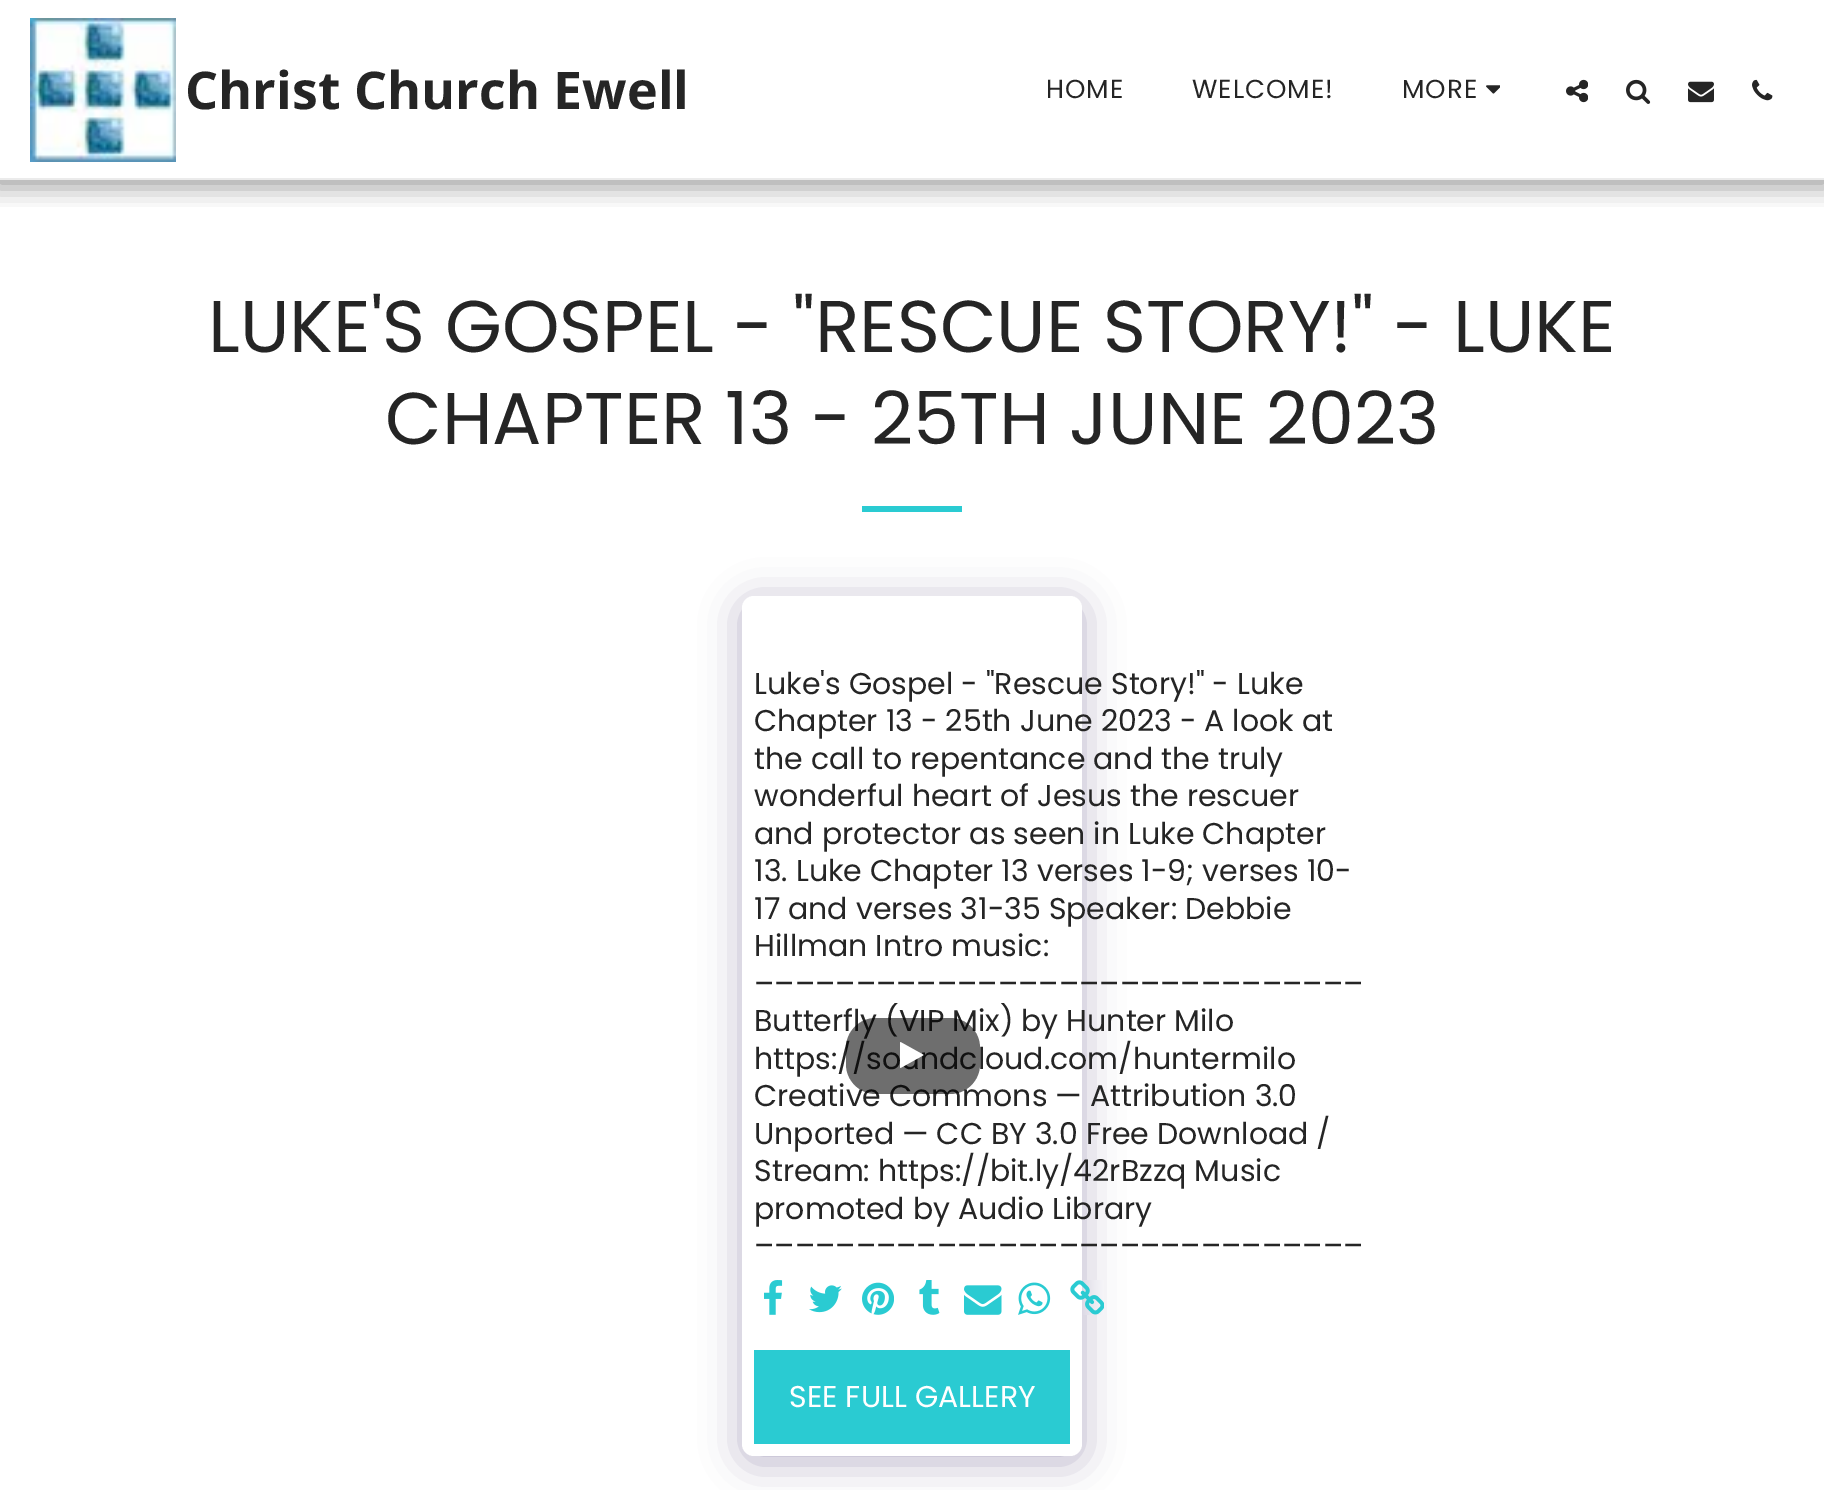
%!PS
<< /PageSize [1824 1490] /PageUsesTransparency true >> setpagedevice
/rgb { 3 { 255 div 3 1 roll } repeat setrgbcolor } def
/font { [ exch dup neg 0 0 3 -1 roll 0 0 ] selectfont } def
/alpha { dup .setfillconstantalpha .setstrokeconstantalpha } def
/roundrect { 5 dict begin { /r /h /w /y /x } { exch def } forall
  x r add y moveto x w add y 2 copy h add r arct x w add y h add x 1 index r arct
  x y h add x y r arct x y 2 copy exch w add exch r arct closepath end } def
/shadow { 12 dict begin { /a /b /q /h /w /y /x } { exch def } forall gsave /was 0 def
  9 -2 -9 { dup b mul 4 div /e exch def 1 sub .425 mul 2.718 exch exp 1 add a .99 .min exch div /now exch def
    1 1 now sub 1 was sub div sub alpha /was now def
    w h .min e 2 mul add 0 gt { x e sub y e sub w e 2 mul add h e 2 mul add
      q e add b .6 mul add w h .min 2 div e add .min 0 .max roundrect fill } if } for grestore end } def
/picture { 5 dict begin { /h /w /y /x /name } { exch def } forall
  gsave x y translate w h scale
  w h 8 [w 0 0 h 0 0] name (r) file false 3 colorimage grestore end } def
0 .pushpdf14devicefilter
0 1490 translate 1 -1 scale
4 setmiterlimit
255 255 255 rgb
0 0 1824 1490 rectfill
gsave
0 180 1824 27 rectclip
0 0 0 rgb
-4 0 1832 188 0 12 0.35 shadow
grestore
235 235 235 rgb
0 178 1824 2 rectfill
(img/1.rgb) 30 18 146 144 picture
(img/2.rgb) 1486 85 14 9 picture
(img/3.rgb) 1566 79 22 24 picture
(img/4.rgb) 1626 79 25 25 picture
(img/5.rgb) 1688 81 26 22 picture
(img/6.rgb) 1752 79 21 22 picture
42 203 210 rgb
862 506 100 6 rectfill
77 63 122 rgb
742 602 340 860 12 20 0.4 shadow
255 255 255 rgb
742 596 340 860 12 roundrect fill
(img/7.rgb) 764 1280 19 35 picture
(img/8.rgb) 809 1285 33 28 picture
(img/9.rgb) 862 1282 32 33 picture
(img/10.rgb) 919 1280 21 35 picture
(img/11.rgb) 964 1285 38 30 picture
(img/12.rgb) 1018 1282 33 33 picture
(img/13.rgb) 1070 1280 34 35 picture
42 203 210 rgb
754 1350 316 94 rectfill
/OpenSans-Bold 52 font
37 37 37 rgb
185 109 moveto (Christ Church Ewell) show
/Poppins-Regular 26 font
1046 98 moveto 1 0 (HOME) ashow
1192 98 moveto 1 0 (WELCOME!) ashow
1402 98 moveto 1 0 (MORE) ashow
/Poppins-Regular 73.25 font
208 352 moveto (LUKE'S GOSPEL - "RESCUE STORY!" - LUKE) show
385 444 moveto (CHAPTER 13 - 25TH JUNE 2023) show
/Poppins-Regular 30 font
[
  [(Luke's Gospel - "Rescue Story!" - Luke) 754 694]
  [(Chapter 13 - 25th June 2023 - A look at) 754 731]
  [(the call to repentance and the truly) 754 769]
  [(wonderful heart of Jesus the rescuer) 754 806]
  [(and protector as seen in Luke Chapter) 754 844]
  [(13. Luke Chapter 13 verses 1-9; verses 10-) 754 881]
  [(17 and verses 31-35 Speaker: Debbie) 754 919]
  [(Hillman Intro music:) 754 956]
  [(––––––––––––––––––––––––––––––) 754 994]
  [(Butterfly \(VIP Mix\) by Hunter Milo) 754 1031]
  [(https://soundcloud.com/huntermilo) 754 1069]
  [(Creative Commons — Attribution 3.0) 754 1106]
  [(Unported — CC BY 3.0 Free Download /) 754 1144]
  [(Stream: https://bit.ly/42rBzzq Music) 754 1181]
  [(promoted by Audio Library) 754 1219]
  [(––––––––––––––––––––––––––––––) 754 1256]
] { aload pop moveto show } forall
0.57 alpha
0 0 0 rgb
846 1018 134 76 30 roundrect fill
1 alpha
(img/14.rgb) 900 1042 24 26 picture
255 255 255 rgb
789 1407 moveto (SEE FULL GALLERY) show
.poppdf14devicefilter showpage
